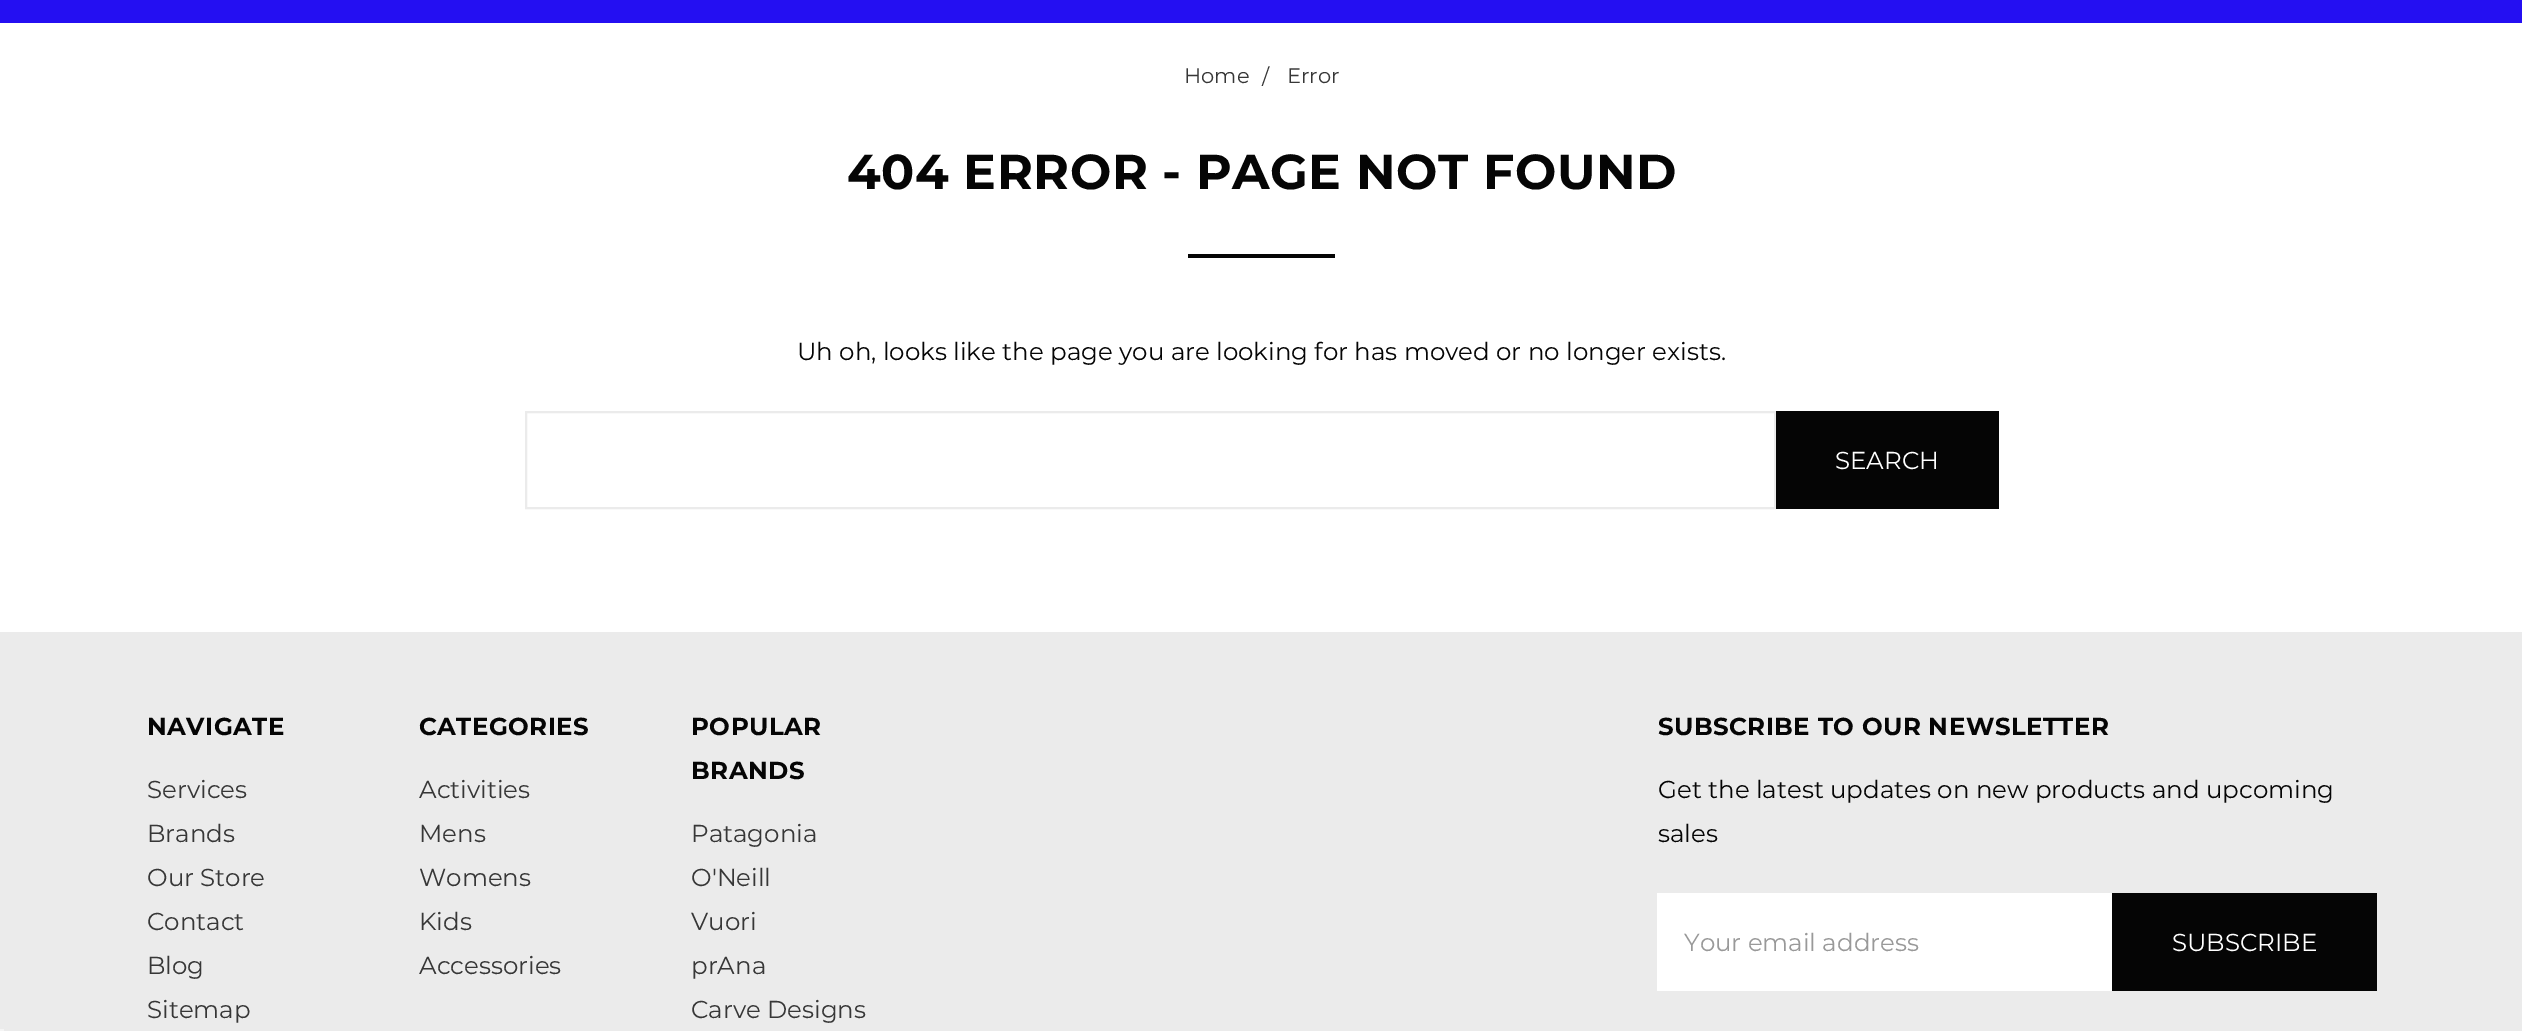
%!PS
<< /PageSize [2522 1031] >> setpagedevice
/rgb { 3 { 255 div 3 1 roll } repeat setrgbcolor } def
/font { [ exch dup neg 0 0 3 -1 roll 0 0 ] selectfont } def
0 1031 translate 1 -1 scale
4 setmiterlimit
255 255 255 rgb
0 0 2522 1031 rectfill
36 15 242 rgb
0 0 2522 23 rectfill
5 5 5 rgb
1188 254 147 4 rectfill
235 235 235 rgb
2 setlinewidth
526 412 1249 96 rectstroke
[
  [1776 411 223 98 5 5 5]
  [0 632 2522 399 235 235 235]
  [1657 893 455 98 255 255 255]
  [2112 893 265 98 5 5 5]
  [0 1029 4 2 245 245 245]
] { aload pop rgb rectfill } forall
/Montserrat-Regular 21 font
55 55 55 rgb
[
  [(Home) 1184 83]
  [(/) 1262 84]
  [(Error) 1287 83]
] { aload pop moveto show } forall
/Montserrat-Bold 49 font
5 5 5 rgb
847 189 moveto 0.45 0 (404 ERROR - PAGE NOT FOUND) ashow
/Montserrat-Regular 24.5 font
797 360 moveto (Uh oh, looks like the page you are looking for has moved or no longer exists.) show
255 255 255 rgb
1835 469 moveto (SEARCH) show
/Montserrat-Bold 24.5 font
5 5 5 rgb
147 735 moveto 0.45 0 (NAVIGATE) ashow
/Montserrat-Regular 24.5 font
55 55 55 rgb
[
  [(Services) 147 798]
  [(Brands) 147 842]
  [(Our Store) 147 886]
  [(Contact) 147 930]
  [(Blog) 147 974]
  [(Sitemap) 147 1018]
] { aload pop moveto show } forall
/Montserrat-Bold 24.5 font
5 5 5 rgb
419 735 moveto 0.45 0 (CATEGORIES) ashow
/Montserrat-Regular 24.5 font
55 55 55 rgb
[
  [(Activities) 419 798]
  [(Mens) 419 842]
  [(Womens) 419 886]
  [(Kids) 419 930]
  [(Accessories) 419 974]
] { aload pop moveto show } forall
/Montserrat-Bold 24.5 font
5 5 5 rgb
691 735 moveto 0.45 0 (POPULAR) ashow
691 779 moveto 0.45 0 (BRANDS) ashow
/Montserrat-Regular 24.5 font
55 55 55 rgb
[
  [(Patagonia) 691 842]
  [(O'Neill) 691 886]
  [(Vuori) 691 930]
  [(prAna) 691 974]
  [(Carve Designs) 691 1018]
] { aload pop moveto show } forall
/Montserrat-Bold 24.5 font
5 5 5 rgb
1658 735 moveto 0.45 0 (SUBSCRIBE TO OUR NEWSLETTER) ashow
/Montserrat-Regular 24.5 font
1658 798 moveto (Get the latest updates on new products and upcoming) show
1658 842 moveto (sales) show
153 153 153 rgb
1684 951 moveto (Your email address) show
255 255 255 rgb
2172 951 moveto (SUBSCRIBE) show
showpage
